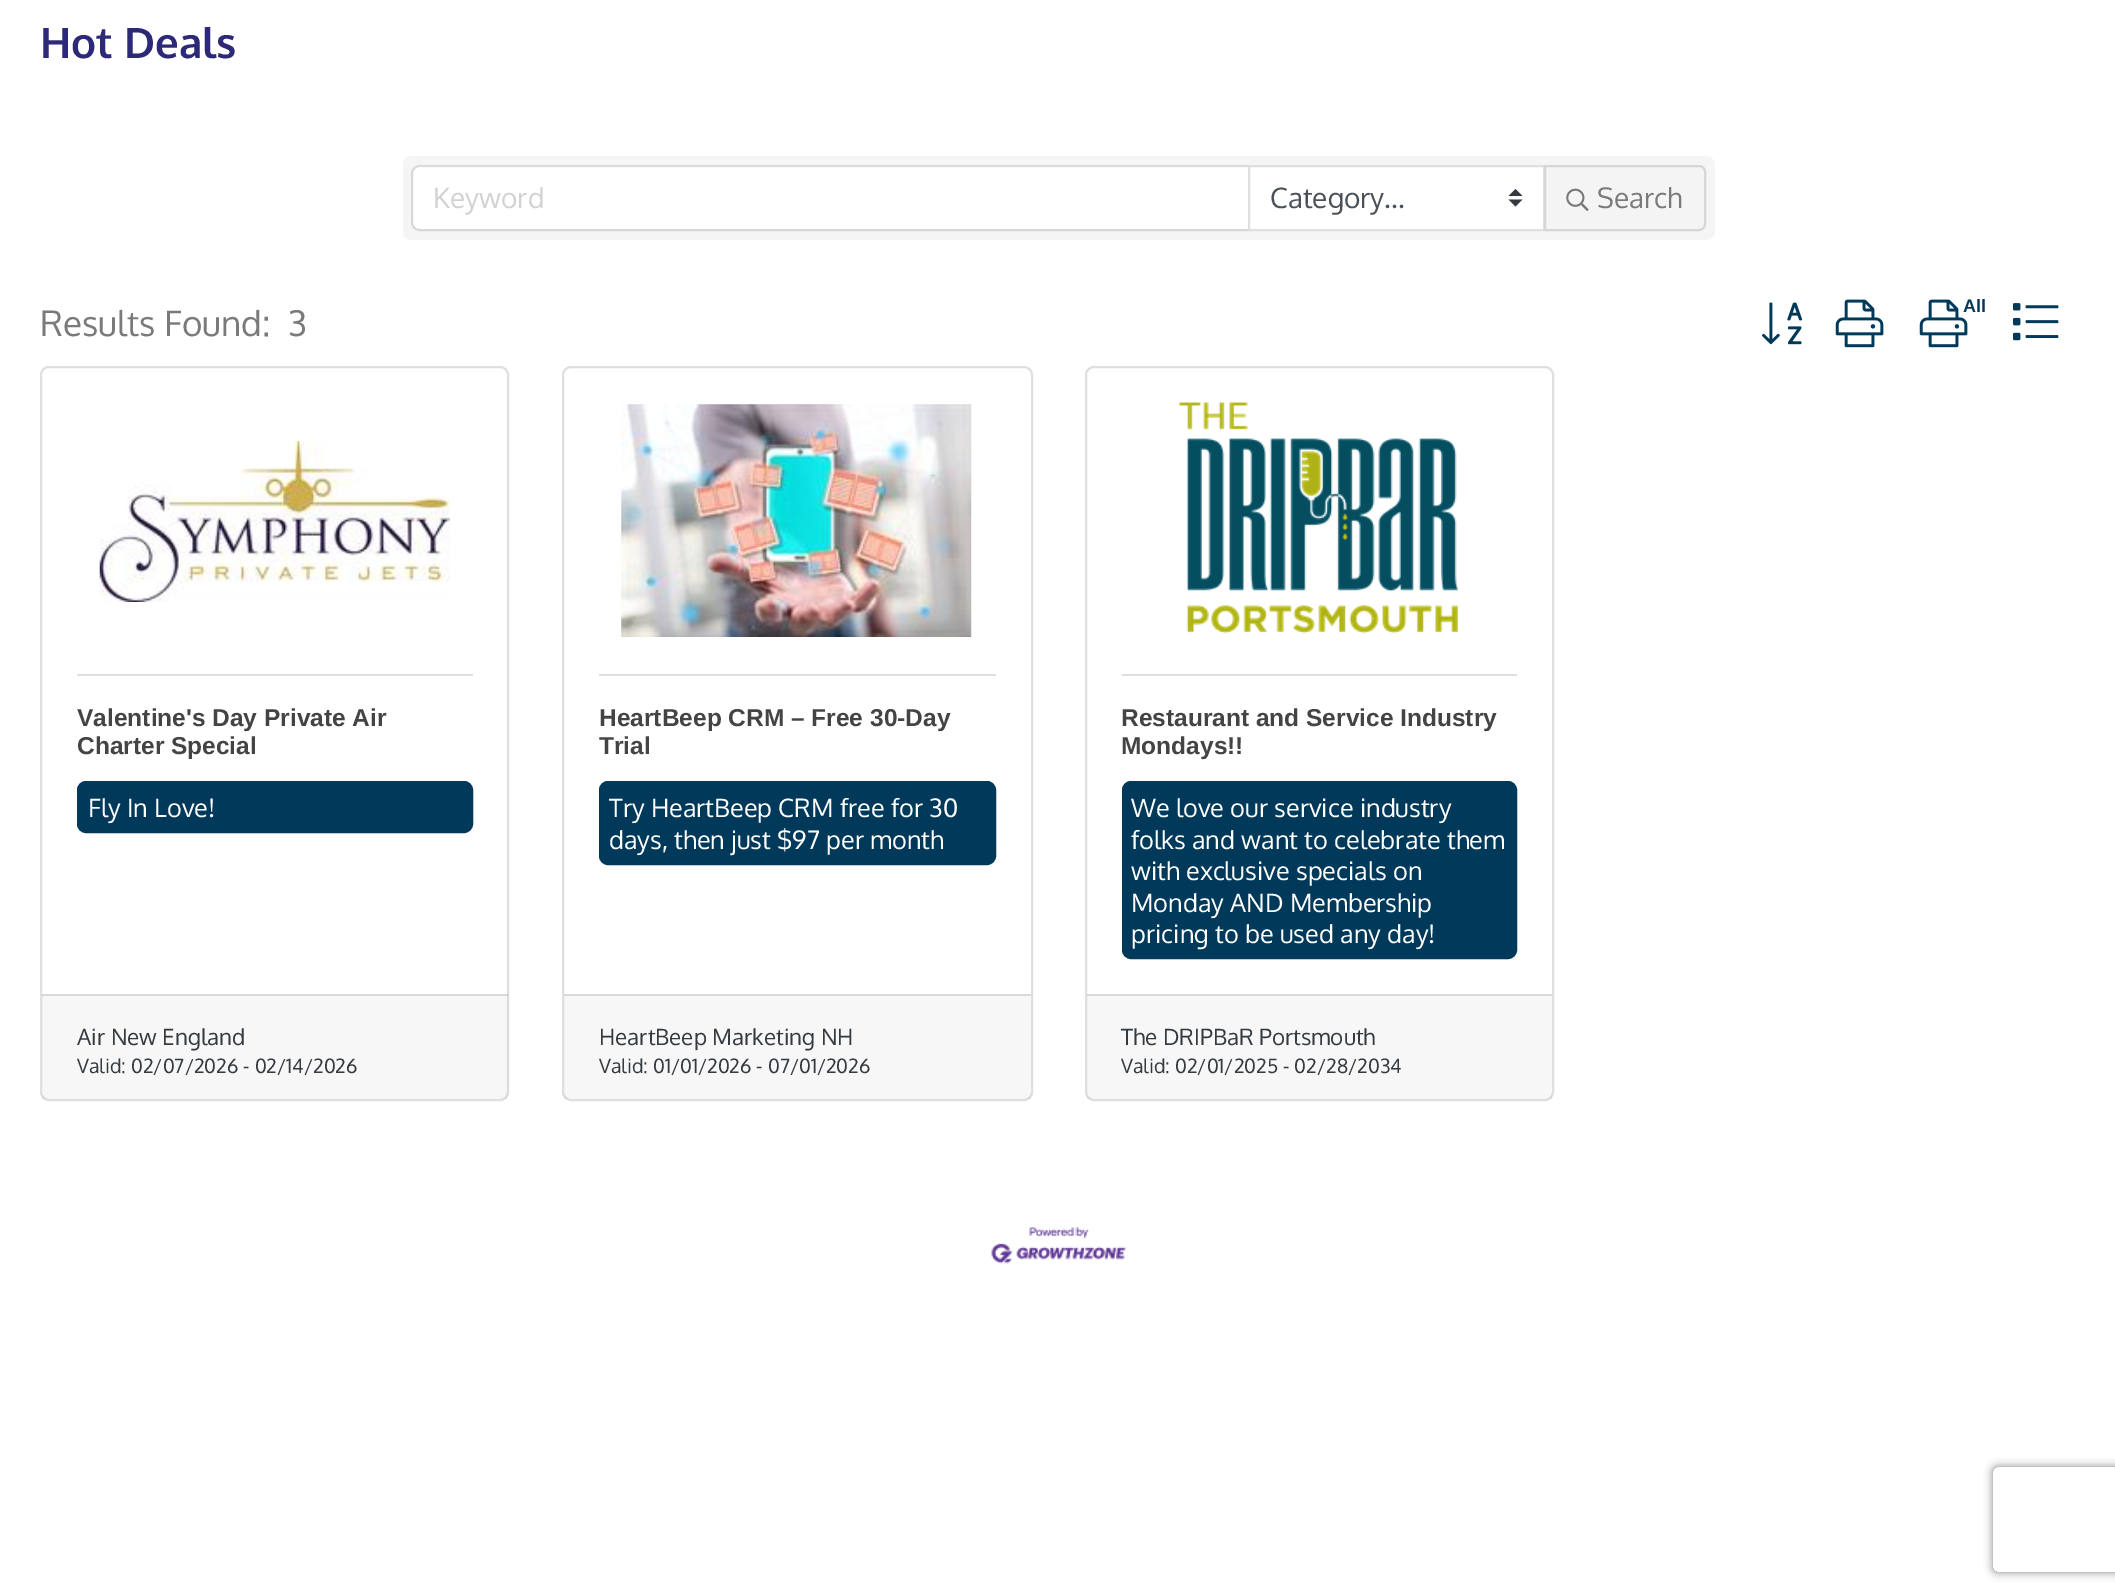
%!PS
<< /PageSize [2115 1596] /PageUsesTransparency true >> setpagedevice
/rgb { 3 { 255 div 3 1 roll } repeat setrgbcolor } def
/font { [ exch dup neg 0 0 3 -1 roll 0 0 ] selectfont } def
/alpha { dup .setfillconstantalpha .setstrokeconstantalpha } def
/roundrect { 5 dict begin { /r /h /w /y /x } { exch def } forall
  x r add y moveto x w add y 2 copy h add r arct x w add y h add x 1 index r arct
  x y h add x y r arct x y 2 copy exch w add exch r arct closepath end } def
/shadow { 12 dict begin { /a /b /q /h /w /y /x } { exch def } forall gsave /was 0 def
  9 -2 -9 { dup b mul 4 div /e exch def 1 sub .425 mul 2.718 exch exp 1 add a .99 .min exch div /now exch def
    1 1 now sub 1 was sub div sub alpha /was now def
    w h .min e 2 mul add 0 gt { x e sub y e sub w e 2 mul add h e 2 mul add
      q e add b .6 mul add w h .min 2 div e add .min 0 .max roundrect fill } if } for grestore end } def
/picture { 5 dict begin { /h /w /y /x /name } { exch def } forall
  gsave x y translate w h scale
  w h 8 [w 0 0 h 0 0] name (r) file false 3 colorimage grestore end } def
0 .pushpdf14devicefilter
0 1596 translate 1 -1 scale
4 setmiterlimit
255 255 255 rgb
0 0 2115 1596 rectfill
245 245 245 rgb
403 156 1312 84 9 roundrect fill
255 255 255 rgb
420 166 moveto 1248 166 lineto 1248 229 lineto 420 229 lineto 416 229 413 226 413 222 curveto 413 173 lineto 413 169 416 166 420 166 curveto closepath fill
0.12 alpha
0 0 0 rgb
2 setlinewidth
420 166 moveto 1249 166 lineto 1249 230 lineto 420 230 lineto 415.5 230 412 226.5 412 222 curveto 412 174 lineto 412 169.5 415.5 166 420 166 curveto closepath stroke
1 alpha
255 255 255 rgb
1250 167 293 62 rectfill
52 58 64 rgb
1515.5 189 moveto 1508.5 196 lineto 1522.5 196 lineto closepath 1515.5 206.5 moveto 1508.5 199.5 lineto 1522.5 199.5 lineto closepath fill
223 223 223 rgb
1249 166 295 64 rectstroke
244 244 244 rgb
1545 166 moveto 1699 166 lineto 1702.5 166 1705 168.5 1705 172 curveto 1705 224 lineto 1705 227.5 1702.5 230 1699 230 curveto 1545 230 lineto closepath gsave fill grestore
214 214 214 rgb
stroke
(img/1.rgb) 1566 188 23 23 picture
(img/2.rgb) 1762 302 41 43 picture
(img/3.rgb) 1835 299 49 49 picture
(img/3.rgb) 1919 299 49 49 picture
(img/4.rgb) 2013 303 46 38 picture
223 223 223 rgb
41 367 467 733 8 roundrect stroke
(img/5.rgb) 99 441 351 161 picture
77 674 396 2 rectfill
0 57 90 rgb
78 782 394 50 8 roundrect gsave fill grestore
stroke
0.03 alpha
0 0 0 rgb
42 994 466 105 rectfill
0.12 alpha
42 994 466 2 rectfill
1 alpha
223 223 223 rgb
563 367 469 733 8 roundrect stroke
(img/6.rgb) 621 404 351 233 picture
599 674 397 2 rectfill
0 57 90 rgb
600 782 395 82 8 roundrect gsave fill grestore
stroke
0.03 alpha
0 0 0 rgb
564 996 467 103 rectfill
1 alpha
216 216 216 rgb
564 994 467 2 rectfill
223 223 223 rgb
1086 367 467 733 8 roundrect stroke
(img/7.rgb) 1179 402 279 232 picture
1122 674 395 2 rectfill
0 57 90 rgb
1123 782 393 176 8 roundrect gsave fill grestore
stroke
0.03 alpha
0 0 0 rgb
1087 996 465 103 rectfill
1 alpha
216 216 216 rgb
1087 994 465 2 rectfill
(img/8.rgb) 991 1227 136 37 picture
gsave
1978 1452 moveto 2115 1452 lineto 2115 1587 lineto 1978 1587 lineto closepath 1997 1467 moveto 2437 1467 lineto 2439 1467 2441 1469 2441 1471 curveto 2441 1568 lineto 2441 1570 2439 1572 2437 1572 curveto 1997 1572 lineto 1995 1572 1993 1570 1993 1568 curveto 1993 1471 lineto 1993 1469 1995 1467 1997 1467 curveto closepath eoclip newpath
128 128 128 rgb
1993 1467 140 105 4 4.5 1 shadow
grestore
/Oxygen-Bold 42 font
44 42 119 rgb
40 58 moveto (Hot Deals) show
/Oxygen-Regular 28 font
210 210 210 rgb
433 208 moveto (Keyword) show
73 80 87 rgb
1270 208 moveto (Category...) show
122 122 122 rgb
1597 208 moveto (Search) show
/LiberationSans-Bold 18 font
0 57 90 rgb
1963 312 moveto (All) show
/Oxygen-Regular 35 font
122 122 122 rgb
40 336 moveto (Results Found:) show
288 336 moveto (3) show
/LiberationSans-Bold 24.5 font
68 68 68 rgb
77 726 moveto (Valentine's Day Private Air) show
77 754 moveto (Charter Special) show
/Oxygen-Regular 25.25 font
255 255 255 rgb
88 817 moveto (Fly In Love!) show
/Oxygen-Regular 22.4 font
52 58 64 rgb
77 1045 moveto (Air New England) show
/Oxygen-Regular 19.6 font
77 1073 moveto (Valid: 02/07/2026 - 02/14/2026) show
/LiberationSans-Bold 24.5 font
68 68 68 rgb
599 726 moveto (HeartBeep CRM – Free 30-Day) show
599 754 moveto (Trial) show
/Oxygen-Regular 25.25 font
255 255 255 rgb
609 817 moveto (Try HeartBeep CRM free for 30) show
609 849 moveto (days, then just $97 per month) show
/Oxygen-Regular 22.4 font
52 58 64 rgb
599 1045 moveto (HeartBeep Marketing NH) show
/Oxygen-Regular 19.6 font
599 1073 moveto (Valid: 01/01/2026 - 07/01/2026) show
/LiberationSans-Bold 24.5 font
68 68 68 rgb
1121 726 moveto (Restaurant and Service Industry) show
1121 754 moveto (Mondays!!) show
/Oxygen-Regular 25.25 font
255 255 255 rgb
[
  [(We love our service industry) 1131 817]
  [(folks and want to celebrate them) 1131 849]
  [(with exclusive specials on) 1131 880]
  [(Monday AND Membership) 1131 912]
  [(pricing to be used any day!) 1131 943]
] { aload pop moveto show } forall
/Oxygen-Regular 22.4 font
52 58 64 rgb
1121 1045 moveto (The DRIPBaR Portsmouth) show
/Oxygen-Regular 19.6 font
1121 1073 moveto (Valid: 02/01/2025 - 02/28/2034) show
.poppdf14devicefilter showpage
